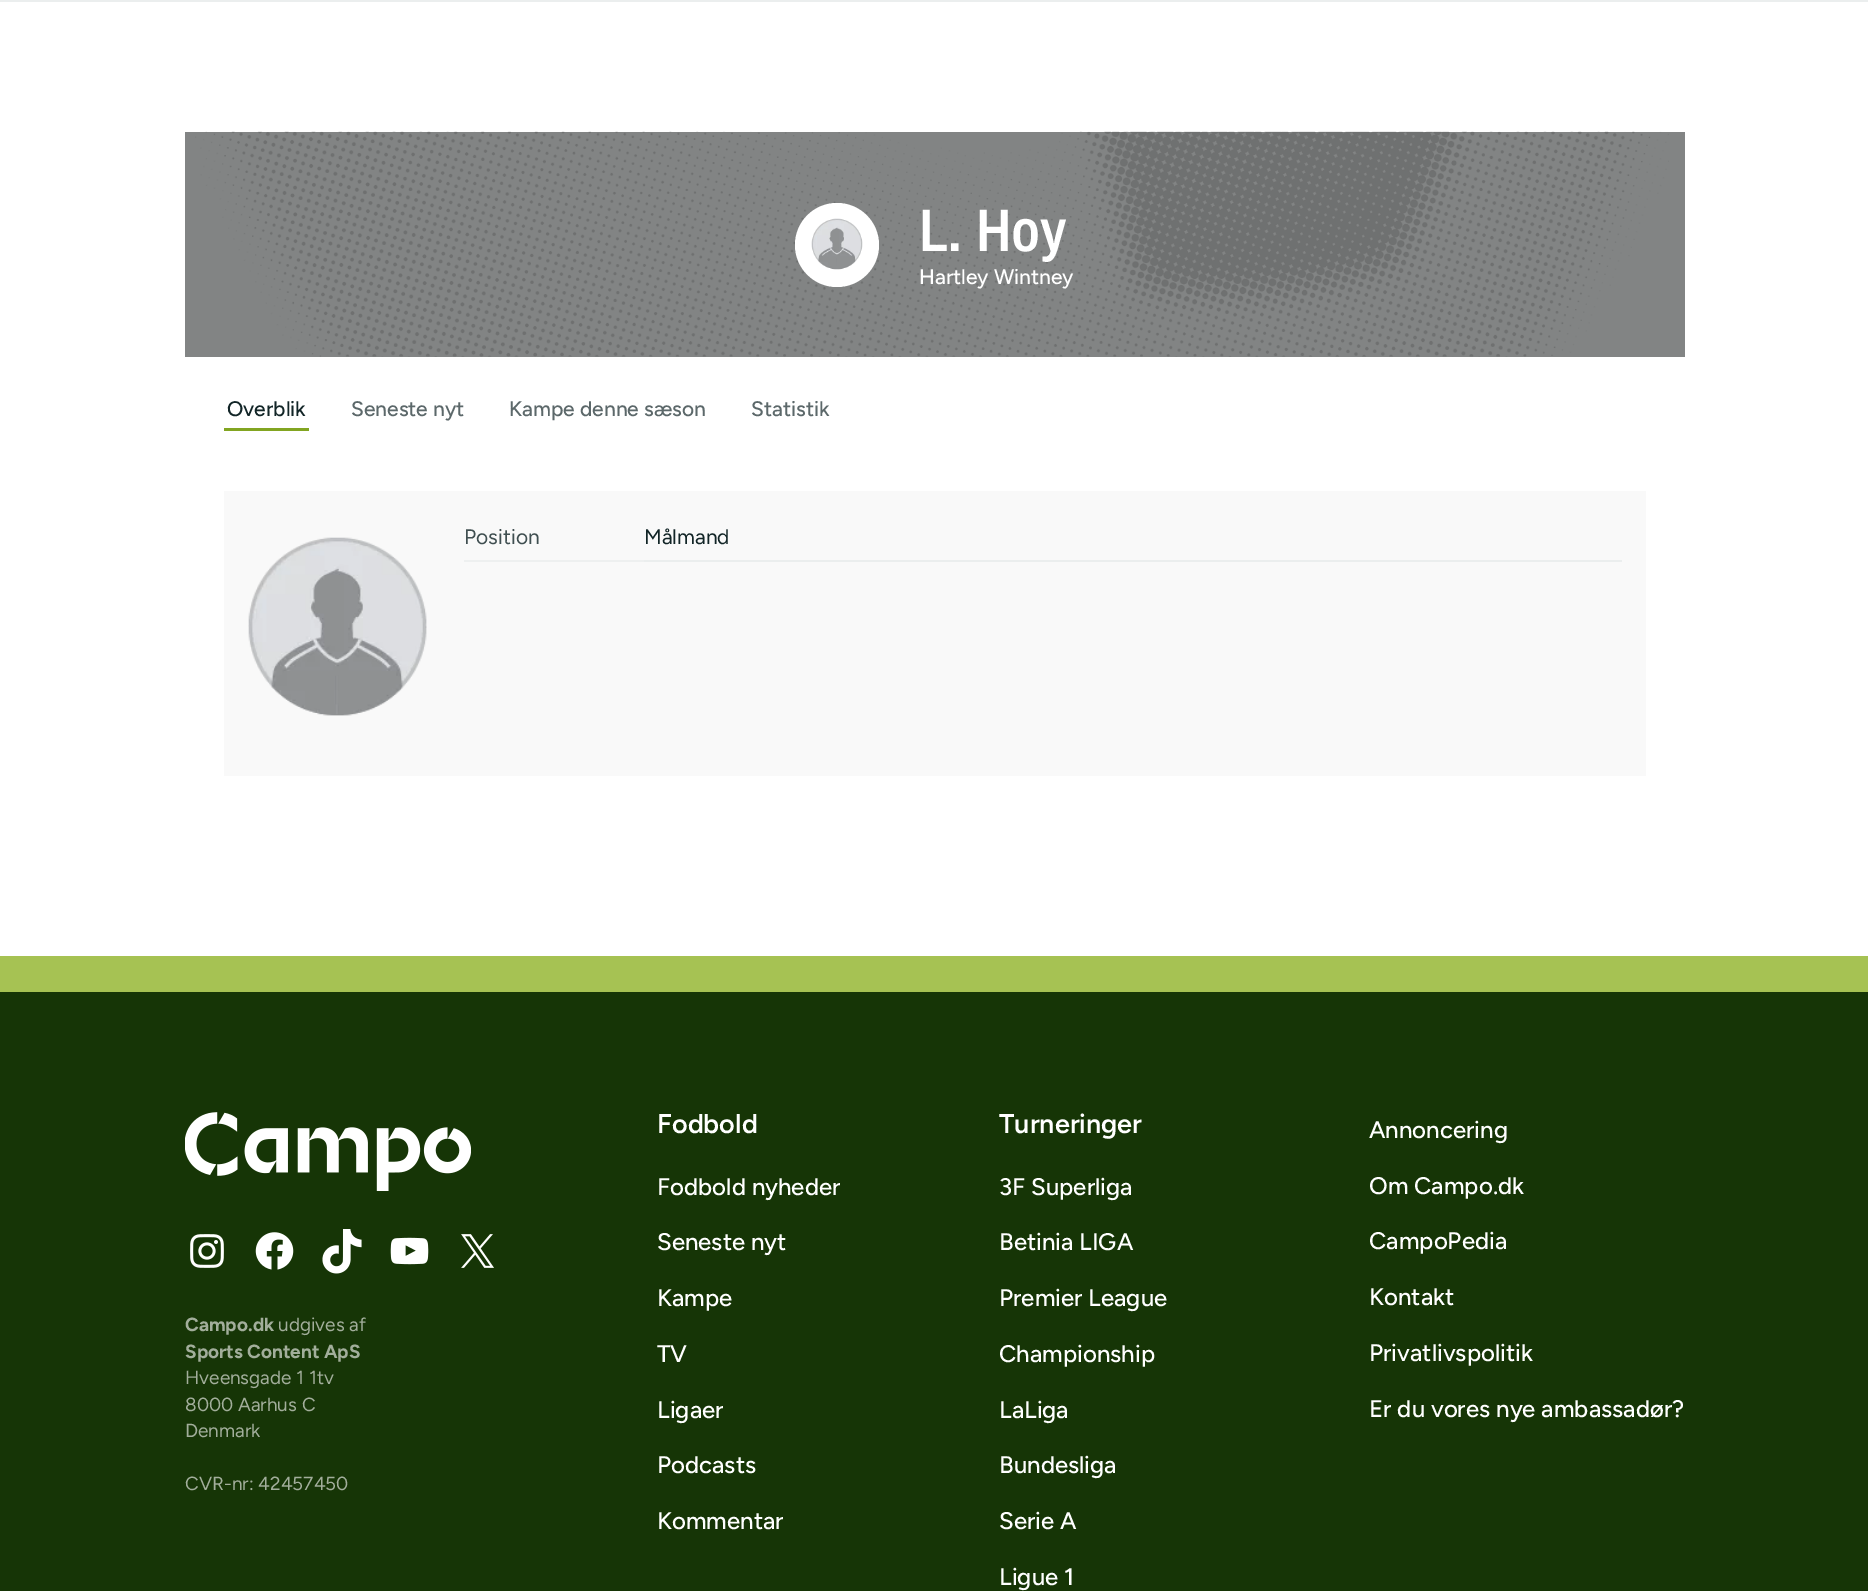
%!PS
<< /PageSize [1868 1591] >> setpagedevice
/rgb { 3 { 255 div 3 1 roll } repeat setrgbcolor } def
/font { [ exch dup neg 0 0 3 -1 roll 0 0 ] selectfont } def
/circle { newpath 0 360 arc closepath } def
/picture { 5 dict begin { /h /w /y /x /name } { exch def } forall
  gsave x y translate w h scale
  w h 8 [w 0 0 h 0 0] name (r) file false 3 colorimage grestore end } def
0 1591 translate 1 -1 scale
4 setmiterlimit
255 255 255 rgb
0 0 1868 1591 rectfill
235 238 238 rgb
0 0 1868 2 rectfill
130 132 132 rgb
185 132 1500 225 rectfill
(img/1.rgb) 195 131 1474 226 picture
255 255 255 rgb
837 245 42 circle fill
(img/2.rgb) 811 218 52 52 picture
130 165 33 rgb
224 428 85 3 rectfill
249 249 249 rgb
224 491 1422 285 rectfill
(img/3.rgb) 248 537 179 179 picture
[
  [464 560 180 2 238 240 240]
  [644 560 978 2 235 238 238]
  [0 992 1868 599 22 53 6]
  [0 956 1868 36 166 194 83]
] { aload pop rgb rectfill } forall
(img/4.rgb) 185 1112 286 79 picture
(img/5.rgb) 190 1234 34 34 picture
(img/6.rgb) 255 1232 39 38 picture
(img/7.rgb) 322 1229 40 45 picture
(img/8.rgb) 390 1237 39 28 picture
(img/9.rgb) 461 1234 33 34 picture
/ArchivoNarrow-SemiBold 60 font
255 255 255 rgb
919 251 moveto (L. Hoy) show
/Figtree-Light 21 font
919 284 moveto (Hartley Wintney) show
18 37 39 rgb
227 416 moveto (Overblik) show
92 104 106 rgb
[
  [(Seneste nyt) 351 416]
  [(Kampe denne sæson) 509 416]
  [(Statistik) 751 416]
] { aload pop moveto show } forall
/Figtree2-Light 21 font
64 79 81 rgb
464 544 moveto (Position) show
18 37 39 rgb
644 544 moveto (Målmand) show
/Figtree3-Light 19 font
162 174 155 rgb
185 1331 moveto (Campo.dk) show
/Figtree2-Light 19 font
278 1331 moveto (udgives af) show
/Figtree3-Light 19 font
185 1358 moveto (Sports Content ApS) show
/Figtree2-Light 19 font
[
  [(Hveensgade 1 1tv) 185 1384]
  [(8000 Aarhus C) 185 1411]
  [(Denmark) 185 1437]
  [(CVR-nr: 42457450) 185 1490]
] { aload pop moveto show } forall
/Figtree-SemiBold 27 font
255 255 255 rgb
657 1133 moveto (Fodbold) show
/Figtree-Light 24 font
[
  [(Fodbold nyheder) 657 1195]
  [(Seneste nyt) 657 1250]
  [(Kampe) 657 1306]
  [(TV) 657 1362]
  [(Ligaer) 657 1418]
  [(Podcasts) 657 1473]
  [(Kommentar) 657 1529]
] { aload pop moveto show } forall
/Figtree-SemiBold 27 font
999 1133 moveto (Turneringer) show
/Figtree-Light 24 font
[
  [(3F Superliga) 999 1195]
  [(Betinia LIGA) 999 1250]
  [(Premier League) 999 1306]
  [(Championship) 999 1362]
  [(LaLiga) 999 1418]
  [(Bundesliga) 999 1473]
  [(Serie A) 999 1529]
  [(Ligue 1) 999 1585]
  [(Annoncering) 1369 1138]
  [(Om Campo.dk) 1369 1194]
  [(CampoPedia) 1369 1249]
  [(Kontakt) 1369 1305]
  [(Privatlivspolitik) 1369 1361]
  [(Er du vores nye ambassadør?) 1369 1417]
] { aload pop moveto show } forall
showpage
